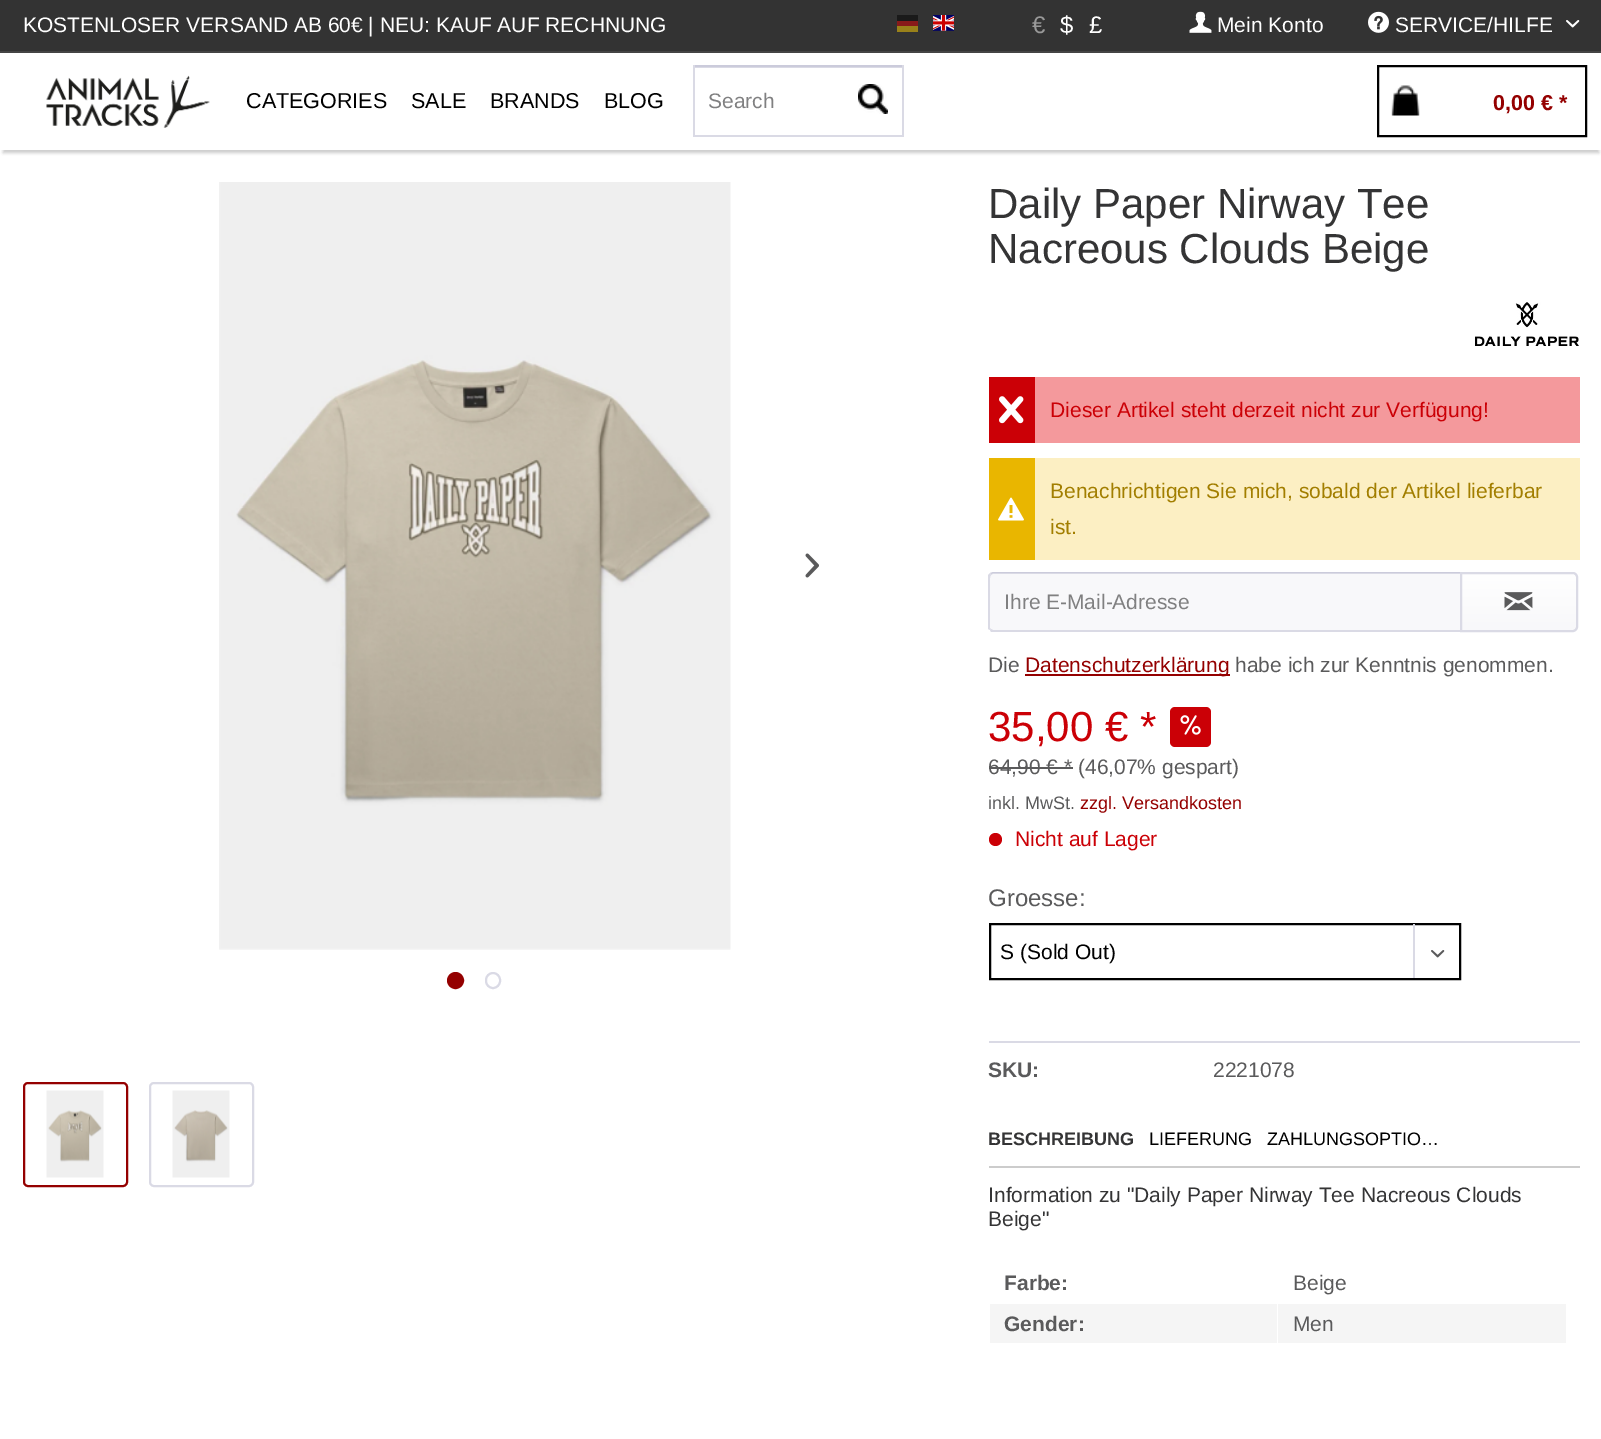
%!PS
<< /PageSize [1601 1439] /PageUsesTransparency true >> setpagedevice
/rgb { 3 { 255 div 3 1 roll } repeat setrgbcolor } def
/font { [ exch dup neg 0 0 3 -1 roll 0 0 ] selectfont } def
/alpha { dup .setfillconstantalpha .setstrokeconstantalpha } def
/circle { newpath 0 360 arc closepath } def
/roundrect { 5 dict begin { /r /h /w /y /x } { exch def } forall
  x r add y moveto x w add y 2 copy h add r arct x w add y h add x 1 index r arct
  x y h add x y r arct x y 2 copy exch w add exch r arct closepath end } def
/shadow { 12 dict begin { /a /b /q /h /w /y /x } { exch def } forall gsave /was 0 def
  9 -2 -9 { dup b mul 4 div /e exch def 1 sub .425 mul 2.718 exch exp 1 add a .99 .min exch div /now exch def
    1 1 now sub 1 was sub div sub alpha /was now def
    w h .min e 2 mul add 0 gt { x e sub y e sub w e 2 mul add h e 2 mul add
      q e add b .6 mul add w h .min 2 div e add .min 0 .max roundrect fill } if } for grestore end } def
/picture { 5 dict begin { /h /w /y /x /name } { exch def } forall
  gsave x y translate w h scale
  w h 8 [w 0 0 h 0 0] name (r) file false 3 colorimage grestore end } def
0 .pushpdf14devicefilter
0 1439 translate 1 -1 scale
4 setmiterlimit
255 255 255 rgb
0 0 1601 1439 rectfill
[
  [0 0 1601 51 51 51 51]
  [0 51 1601 2 68 68 68]
  [897 15 21 6 26 26 26]
  [897 21 21 5 136 26 26]
  [897 26 21 6 153 129 26]
] { aload pop rgb rectfill } forall
(img/1.rgb) 933 15 21 16 picture
(img/2.rgb) 1189 11 23 22 picture
(img/3.rgb) 1368 11 21 22 picture
(img/4.rgb) 1566 20 14 8 picture
gsave
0 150 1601 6 rectclip
204 204 204 rgb
3 62 1596 91 0 1.5 1 shadow
grestore
(img/5.rgb) 46 75 164 53 picture
[
  [695 67 207 1 218 218 229]
  [693 65 210 2 203 203 219]
  [902 65 2 72 218 218 229]
  [693 135 210 2 218 218 229]
  [693 65 2 72 218 218 229]
] { aload pop rgb rectfill } forall
(img/6.rgb) 858 84 30 30 picture
0 0 0 rgb
2 setlinewidth
1378 66 208 70 rectstroke
(img/7.rgb) 1391 85 29 31 picture
(img/8.rgb) 219 182 512 768 picture
(img/9.rgb) 805 553 14 25 picture
148 0 0 rgb
455.5 980.5 7.5 circle gsave fill grestore
stroke
218 218 229 rgb
486 973 14 15 7 roundrect stroke
148 0 0 rgb
24 1083 103 103 4 roundrect stroke
(img/10.rgb) 46 1090 58 88 picture
218 218 229 rgb
150 1083 103 103 4 roundrect stroke
(img/11.rgb) 172 1090 58 88 picture
(img/12.rgb) 1475 302 104 44 picture
244 153 156 rgb
1035 377 545 66 rectfill
203 0 6 rgb
989 377 46 66 rectfill
(img/13.rgb) 999 396 25 28 picture
252 239 195 rgb
1035 458 545 102 rectfill
233 182 0 rgb
989 458 46 102 rectfill
(img/14.rgb) 998 497 26 24 picture
248 248 250 rgb
993 573 moveto 1460 573 lineto 1460 630 lineto 993 630 lineto 991.5 630 990 628.5 990 627 curveto 990 576 lineto 990 574.5 991.5 573 993 573 curveto closepath fill
218 218 229 rgb
993 574 moveto 1460 574 lineto 1460 573 lineto 993 573 lineto 990 573 990 576 990 578 curveto 990 576 991 574 993 574 curveto closepath fill
203 203 219 rgb
993 572 moveto 990 573 lineto 991 574 lineto 993 573 lineto 1460 573 lineto 1460 572 lineto closepath fill
218 218 229 rgb
1461 632 moveto 991 632 lineto 990 630 lineto 991 629 lineto 993 630 lineto 1460 630 lineto closepath fill
988 575 moveto 990 573 lineto 991 574 lineto 990 575 lineto 990 628 lineto 991 629 lineto 990 630 lineto 988 629 lineto closepath fill
gsave 1461 573 moveto 1574 573 lineto 1575.5 573 1577 574.5 1577 576 curveto 1577 627 lineto 1577 628.5 1575.5 630 1574 630 curveto 1461 630 lineto closepath clip newpath
<< /ShadingType 2 /ColorSpace /DeviceRGB /Coords [1519 573 1519 630] /Extend [true true] /Function << /FunctionType 2 /Domain [0 1] /C0 [1 1 1] /C1 [0.973 0.973 0.98] /N 1 >> >> shfill grestore
1461 573 moveto 1573 573 lineto 1575 573 1577 575 1577 577 curveto 1577 627 lineto 1577 629 1575 631 1573 631 curveto 1461 631 lineto closepath stroke
(img/15.rgb) 1504 592 29 19 picture
148 0 0 rgb
1025 674 205 2 rectfill
203 0 6 rgb
1170 707 41 40 5 roundrect fill
(img/16.rgb) 1180 715 21 20 picture
90 90 91 rgb
989 767 84 2 rectfill
203 0 6 rgb
995.5 839.5 6.5 circle fill
0 0 0 rgb
990 924 470 55 rectstroke
218 218 229 rgb
1413 924 2 54 rectfill
(img/17.rgb) 1431 950 14 8 picture
[
  [989 1041 591 2 218 218 229]
  [989 1166 591 2 204 204 204]
  [990 1304 287 39 245 245 245]
  [1278 1304 288 39 245 245 245]
] { aload pop rgb rectfill } forall
/LiberationSans-Regular 21 font
255 255 255 rgb
23 32 moveto (KOSTENLOSER VERSAND AB 60€ | NEU: KAUF AUF RECHNUNG) show
/LiberationSans-Regular 24 font
153 153 153 rgb
1032 33 moveto (€) show
255 255 255 rgb
1060 33 moveto ($) show
1089 33 moveto (£) show
/LiberationSans-Regular 21 font
1217 32 moveto (Mein Konto) show
1395 32 moveto (SERVICE/HILFE) show
/LiberationSans-Regular 21.5 font
0 0 0 rgb
[
  [(CATEGORIES) 246 108]
  [(SALE) 411 108]
  [(BRANDS) 490 108]
  [(BLOG) 604 108]
] { aload pop moveto show } forall
/LiberationSans-Regular 21 font
128 128 129 rgb
708 108 moveto (Search) show
/LiberationSans-Bold 21.5 font
148 0 0 rgb
1493 110 moveto (0,00 € *) show
/LiberationSans-Regular 42 font
52 52 53 rgb
988 218 moveto (Daily Paper Nirway Tee) show
988 263 moveto (Nacreous Clouds Beige) show
/LiberationSans-Regular 21 font
203 0 6 rgb
1050 417 moveto (Dieser Artikel steht derzeit nicht zur Verfügung!) show
162 126 0 rgb
1050 498 moveto (Benachrichtigen Sie mich, sobald der Artikel lieferbar) show
1050 534 moveto (ist.) show
128 128 129 rgb
1004 609 moveto (Ihre E-Mail-Adresse) show
90 90 91 rgb
988 672 moveto (Die) show
148 0 0 rgb
1025 672 moveto (Datenschutzerklärung) show
90 90 91 rgb
1235 672 moveto (habe ich zur Kenntnis genommen.) show
/LiberationSans-Regular 42 font
203 0 6 rgb
988 741 moveto (35,00 € *) show
/LiberationSans-Regular 21 font
90 90 91 rgb
988 774 moveto (64,90 € * \(46,07% gespart\)) show
/LiberationSans-Regular 18 font
988 809 moveto (inkl. MwSt.) show
148 0 0 rgb
1080 809 moveto (zzgl. Versandkosten) show
/LiberationSans-Regular 21 font
203 0 6 rgb
1015 846 moveto (Nicht auf Lager) show
/LiberationSans-Regular 24 font
90 90 91 rgb
988 906 moveto (Groesse:) show
/LiberationSans-Regular 21 font
0 0 0 rgb
1000 959 moveto (S \(Sold Out\)) show
/LiberationSans-Bold 21 font
90 90 91 rgb
988 1077 moveto (SKU:) show
/LiberationSans-Regular 21 font
1213 1077 moveto (2221078) show
/LiberationSans-Bold 18 font
52 52 53 rgb
988 1145 moveto (BESCHREIBUNG) show
/LiberationSans-Regular 18 font
0 0 0 rgb
1149 1145 moveto (LIEFERUNG) show
1267 1145 moveto (ZAHLUNGSOPTIO…) show
/LiberationSans-Regular 21 font
52 52 53 rgb
988 1202 moveto (Information zu "Daily Paper Nirway Tee Nacreous Clouds) show
988 1226 moveto (Beige") show
/LiberationSans-Bold 21 font
90 90 91 rgb
1004 1290 moveto (Farbe:) show
/LiberationSans-Regular 21 font
1293 1290 moveto (Beige) show
/LiberationSans-Bold 21 font
1004 1331 moveto (Gender:) show
/LiberationSans-Regular 21 font
1293 1331 moveto (Men) show
.poppdf14devicefilter showpage
